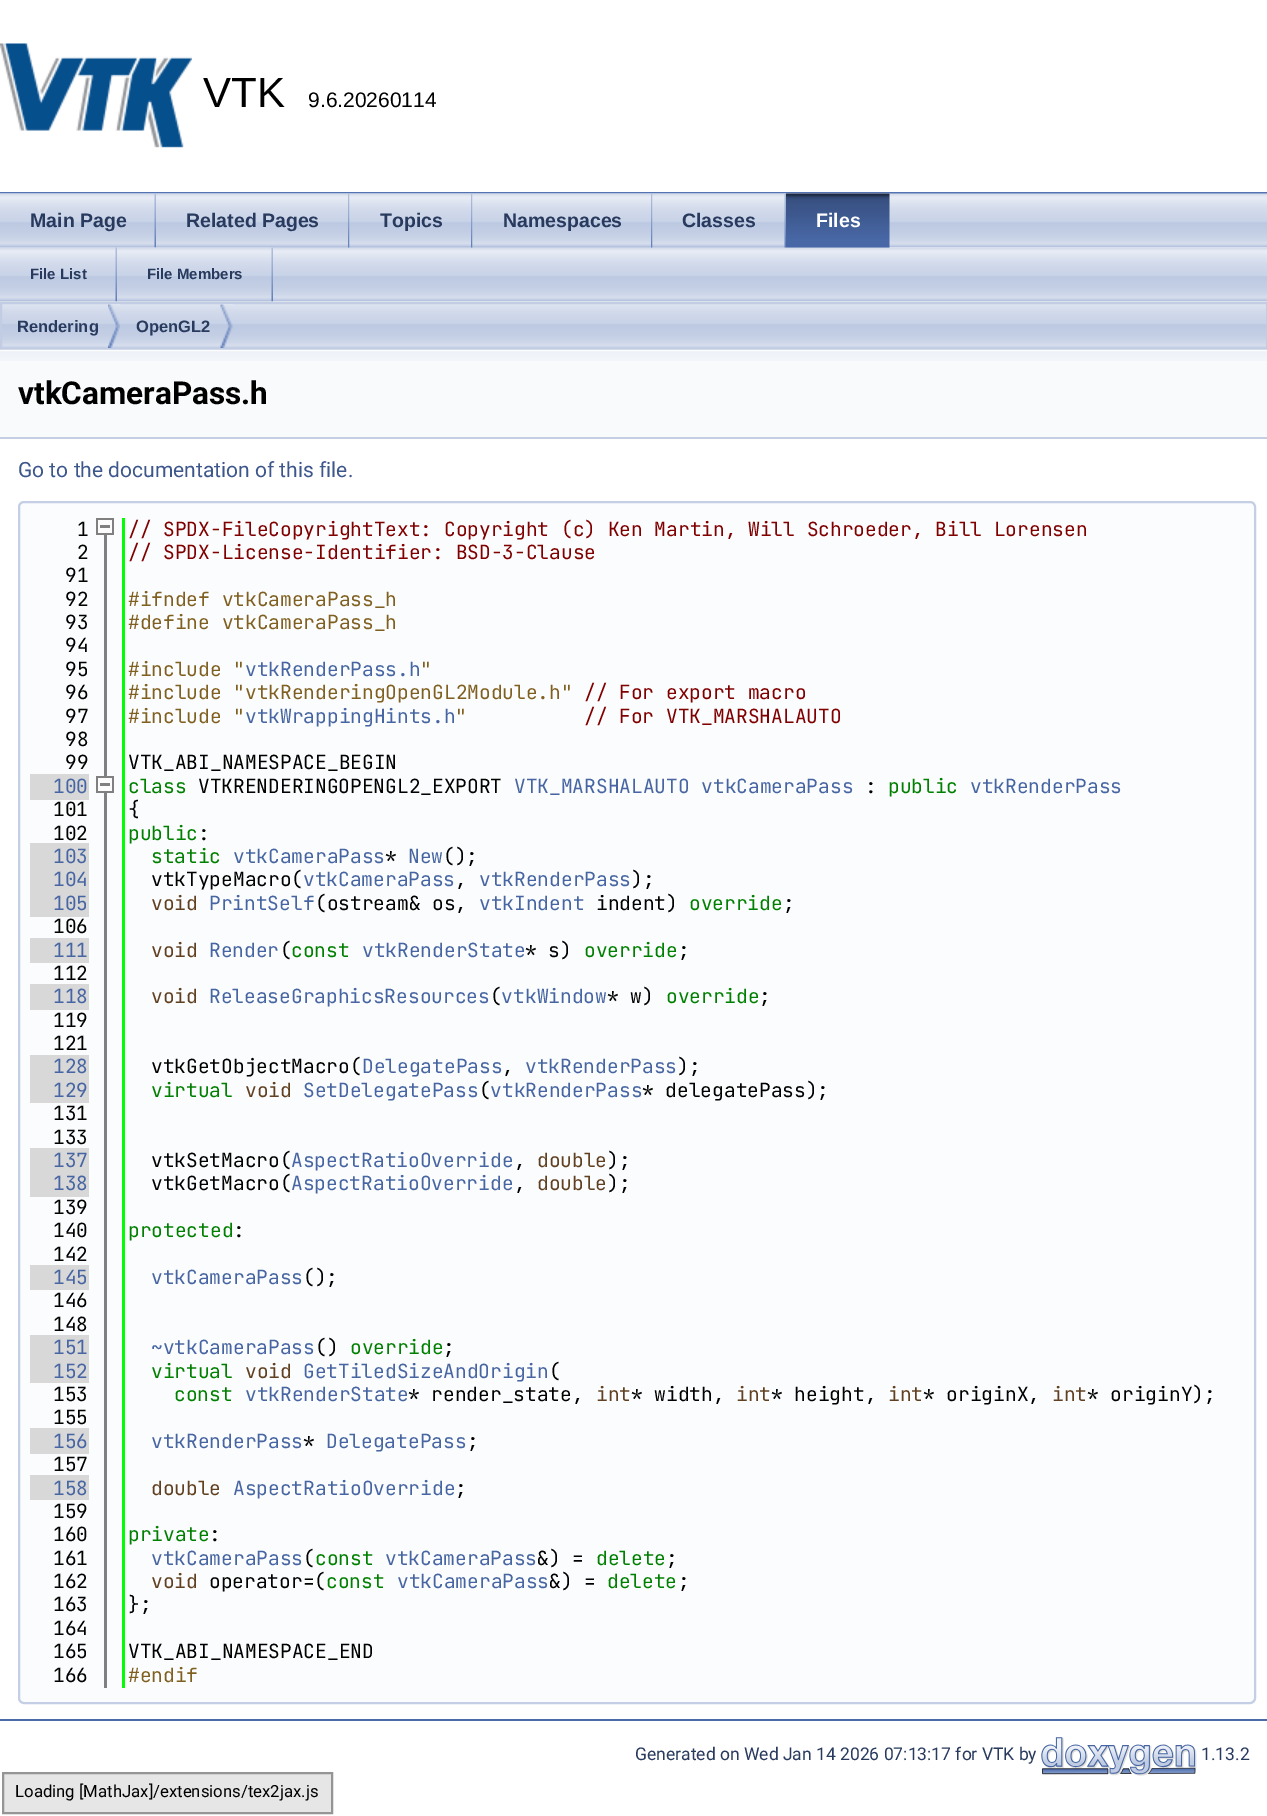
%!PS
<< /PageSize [1267 1816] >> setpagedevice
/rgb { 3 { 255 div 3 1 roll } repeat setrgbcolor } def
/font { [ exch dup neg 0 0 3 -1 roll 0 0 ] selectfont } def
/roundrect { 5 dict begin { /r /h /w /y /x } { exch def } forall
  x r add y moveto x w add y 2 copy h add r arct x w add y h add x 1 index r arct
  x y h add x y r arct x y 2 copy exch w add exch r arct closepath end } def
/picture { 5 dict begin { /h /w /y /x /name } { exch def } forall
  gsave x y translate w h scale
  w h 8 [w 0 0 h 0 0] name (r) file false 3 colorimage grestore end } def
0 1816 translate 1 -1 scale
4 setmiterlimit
255 255 255 rgb
0 0 1267 1816 rectfill
83 115 180 rgb
0 192 1267 2 rectfill
(img/1.rgb) 0 43 192 105 picture
(img/2.rgb) 0 193 1267 55 picture
(img/3.rgb) 0 193 156 55 picture
(img/4.rgb) 154 194 2 54 picture
(img/5.rgb) 156 193 194 55 picture
(img/6.rgb) 348 194 2 54 picture
(img/7.rgb) 349 193 124 55 picture
(img/6.rgb) 471 194 2 54 picture
(img/8.rgb) 472 193 181 55 picture
(img/6.rgb) 651 194 2 54 picture
(img/9.rgb) 652 193 134 55 picture
(img/4.rgb) 784 194 2 54 picture
(img/10.rgb) 786 193 104 55 picture
(img/11.rgb) 786 193 104 55 picture
(img/12.rgb) 0 248 1267 54 picture
(img/13.rgb) 0 247 117 55 picture
(img/14.rgb) 115 247 2 55 picture
(img/15.rgb) 117 247 156 55 picture
(img/14.rgb) 271 247 2 55 picture
(img/16.rgb) 0 301 1267 47 picture
194 205 228 rgb
2 setlinewidth
1 303 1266 46 rectstroke
(img/17.rgb) 108 304 12 44 picture
(img/18.rgb) 220 304 13 44 picture
249 250 252 rgb
0 361 1267 76 rectfill
(img/19.rgb) 0 349 1267 12 picture
196 207 229 rgb
0 437 1267 2 rectfill
251 252 253 rgb
19 502 1236 1201 5 roundrect gsave fill grestore
196 207 229 rgb
stroke
[
  [104 535 3 241 128 128 128]
  [122 518 3 1170 0 255 0]
  [96 518 18 17 128 128 128]
  [98 520 14 13 252 252 252]
  [100 525 10 3 128 128 128]
  [104 793 3 895 128 128 128]
  [30 774 59 26 216 216 216]
  [96 776 18 17 128 128 128]
  [98 778 14 13 252 252 252]
  [100 783 10 3 128 128 128]
  [30 843 59 74 216 216 216]
  [30 938 59 25 216 216 216]
  [30 984 59 26 216 216 216]
  [30 1055 59 48 216 216 216]
  [30 1148 59 49 216 216 216]
  [30 1265 59 25 216 216 216]
  [30 1335 59 48 216 216 216]
  [30 1428 59 26 216 216 216]
  [30 1475 59 25 216 216 216]
  [0 1719 1267 2 74 106 170]
] { aload pop rgb rectfill } forall
(img/20.rgb) 1041 1737 156 39 picture
230 230 230 rgb
3 1773 moveto 332 1773 lineto 332 1813 lineto 3 1813 lineto closepath gsave fill grestore
149 149 149 rgb
stroke
/LiberationSans-Regular 42 font
0 0 0 rgb
203 107 moveto (VTK) show
/LiberationSans-Regular 21 font
308 107 moveto (9.6.20260114) show
/LiberationSans-Bold 19.5 font
40 58 93 rgb
[
  [(Main Page) 30 227]
  [(Related Pages) 186 227]
  [(Topics) 380 227]
  [(Namespaces) 503 227]
  [(Classes) 682 227]
] { aload pop moveto show } forall
255 255 255 rgb
816 227 moveto (Files) show
/LiberationSans-Bold 15 font
40 58 93 rgb
30 279 moveto (File List) show
147 279 moveto (File Members) show
/LiberationSans-Bold 16.5 font
17 332 moveto (Rendering) show
136 332 moveto (OpenGL2) show
/Roboto-Bold 31.5 font
0 0 0 rgb
18 404 moveto (vtkCameraPass.h) show
/Roboto-Regular 21 font
61 87 140 rgb
18 477 moveto (Go to the documentation of this file.) show
/JetBrainsMono-Regular 19.5 font
0 0 0 rgb
77 536 moveto (1) show
128 0 0 rgb
128 536 moveto (// SPDX-FileCopyrightText: Copyright \(c\) Ken Martin, Will Schroeder, Bill Lorensen) show
0 0 0 rgb
77 559 moveto (2) show
128 0 0 rgb
128 559 moveto (// SPDX-License-Identifier: BSD-3-Clause) show
0 0 0 rgb
65 582 moveto (91) show
65 606 moveto (92) show
128 96 32 rgb
128 606 moveto (#ifndef vtkCameraPass_h) show
0 0 0 rgb
65 629 moveto (93) show
128 96 32 rgb
128 629 moveto (#define vtkCameraPass_h) show
0 0 0 rgb
65 652 moveto (94) show
65 676 moveto (95) show
128 96 32 rgb
128 676 moveto (#include ") show
70 101 162 rgb
245 676 moveto (vtkRenderPass.h) show
128 96 32 rgb
420 676 moveto (") show
0 0 0 rgb
65 699 moveto (96) show
128 96 32 rgb
128 699 moveto (#include "vtkRenderingOpenGL2Module.h") show
128 0 0 rgb
584 699 moveto (// For export macro) show
0 0 0 rgb
65 723 moveto (97) show
128 96 32 rgb
128 723 moveto (#include ") show
70 101 162 rgb
245 723 moveto (vtkWrappingHints.h) show
128 96 32 rgb
455 723 moveto (") show
128 0 0 rgb
584 723 moveto (// For VTK_MARSHALAUTO) show
0 0 0 rgb
[
  [(98) 65 746]
  [(99) 65 769]
  [(VTK_ABI_NAMESPACE_BEGIN) 128 769]
] { aload pop moveto show } forall
70 101 162 rgb
53 793 moveto (100) show
0 128 0 rgb
128 793 moveto (class) show
0 0 0 rgb
198 793 moveto (VTKRENDERINGOPENGL2_EXPORT) show
70 101 162 rgb
514 793 moveto (VTK_MARSHALAUTO vtkCameraPass) show
0 0 0 rgb
865 793 moveto (:) show
0 128 0 rgb
888 793 moveto (public) show
70 101 162 rgb
970 793 moveto (vtkRenderPass) show
0 0 0 rgb
[
  [(101) 53 816]
  [({) 128 816]
  [(102) 53 840]
] { aload pop moveto show } forall
0 128 0 rgb
128 840 moveto (public) show
0 0 0 rgb
198 840 moveto (:) show
70 101 162 rgb
53 863 moveto (103) show
0 128 0 rgb
151 863 moveto (static) show
70 101 162 rgb
233 863 moveto (vtkCameraPass) show
0 0 0 rgb
385 863 moveto (*) show
70 101 162 rgb
408 863 moveto (New) show
0 0 0 rgb
443 863 moveto (\(\);) show
70 101 162 rgb
53 886 moveto (104) show
0 0 0 rgb
151 886 moveto (vtkTypeMacro\() show
70 101 162 rgb
303 886 moveto (vtkCameraPass) show
0 0 0 rgb
455 886 moveto (,) show
70 101 162 rgb
479 886 moveto (vtkRenderPass) show
0 0 0 rgb
631 886 moveto (\);) show
70 101 162 rgb
53 910 moveto (105) show
96 64 32 rgb
151 910 moveto (void) show
70 101 162 rgb
209 910 moveto (PrintSelf) show
0 0 0 rgb
315 910 moveto (\(ostream& os,) show
70 101 162 rgb
479 910 moveto (vtkIndent) show
0 0 0 rgb
596 910 moveto (indent\)) show
0 128 0 rgb
689 910 moveto (override) show
0 0 0 rgb
783 910 moveto (;) show
53 933 moveto (106) show
70 101 162 rgb
53 957 moveto (111) show
96 64 32 rgb
151 957 moveto (void) show
70 101 162 rgb
209 957 moveto (Render) show
0 0 0 rgb
280 957 moveto (\() show
0 128 0 rgb
291 957 moveto (const) show
70 101 162 rgb
362 957 moveto (vtkRenderState) show
0 0 0 rgb
525 957 moveto (* s\)) show
0 128 0 rgb
584 957 moveto (override) show
0 0 0 rgb
678 957 moveto (;) show
53 980 moveto (112) show
96 64 32 rgb
151 1003 moveto (void) show
0 0 0 rgb
607 1003 moveto (* w\)) show
70 101 162 rgb
53 1003 moveto (118) show
209 1003 moveto (ReleaseGraphicsResources vtkWindow) show
0 0 0 rgb
490 1003 moveto (\() show
0 128 0 rgb
666 1003 moveto (override) show
0 0 0 rgb
[
  [(;) 759 1003]
  [(119) 53 1027]
  [(121) 53 1050]
] { aload pop moveto show } forall
70 101 162 rgb
53 1073 moveto (128) show
0 0 0 rgb
151 1073 moveto (vtkGetObjectMacro\() show
70 101 162 rgb
362 1073 moveto (DelegatePass) show
0 0 0 rgb
502 1073 moveto (,) show
70 101 162 rgb
525 1073 moveto (vtkRenderPass) show
0 0 0 rgb
677 1073 moveto (\);) show
70 101 162 rgb
53 1097 moveto (129) show
0 128 0 rgb
151 1097 moveto (virtual) show
96 64 32 rgb
245 1097 moveto (void) show
0 0 0 rgb
642 1097 moveto (* delegatePass\);) show
70 101 162 rgb
303 1097 moveto (SetDelegatePass vtkRenderPass) show
0 0 0 rgb
[
  [(\() 479 1097]
  [(131) 53 1120]
  [(133) 53 1144]
] { aload pop moveto show } forall
70 101 162 rgb
53 1167 moveto (137) show
0 0 0 rgb
151 1167 moveto (vtkSetMacro\() show
70 101 162 rgb
291 1167 moveto (AspectRatioOverride) show
0 0 0 rgb
514 1167 moveto (,) show
96 64 32 rgb
537 1167 moveto (double) show
0 0 0 rgb
607 1167 moveto (\);) show
70 101 162 rgb
53 1190 moveto (138) show
0 0 0 rgb
151 1190 moveto (vtkGetMacro\() show
70 101 162 rgb
291 1190 moveto (AspectRatioOverride) show
0 0 0 rgb
514 1190 moveto (,) show
96 64 32 rgb
537 1190 moveto (double) show
0 0 0 rgb
[
  [(\);) 607 1190]
  [(139) 53 1214]
  [(140) 53 1237]
] { aload pop moveto show } forall
0 128 0 rgb
128 1237 moveto (protected) show
0 0 0 rgb
233 1237 moveto (:) show
53 1261 moveto (142) show
70 101 162 rgb
53 1284 moveto (145) show
151 1284 moveto (vtkCameraPass) show
0 0 0 rgb
[
  [(\(\);) 303 1284]
  [(146) 53 1307]
  [(148) 53 1331]
] { aload pop moveto show } forall
70 101 162 rgb
53 1354 moveto (151) show
151 1354 moveto (~vtkCameraPass) show
0 0 0 rgb
315 1354 moveto (\(\)) show
0 128 0 rgb
350 1354 moveto (override) show
0 0 0 rgb
443 1354 moveto (;) show
70 101 162 rgb
53 1378 moveto (152) show
0 128 0 rgb
151 1378 moveto (virtual) show
96 64 32 rgb
245 1378 moveto (void) show
70 101 162 rgb
303 1378 moveto (GetTiledSizeAndOrigin) show
0 0 0 rgb
549 1378 moveto (\() show
53 1401 moveto (153) show
0 128 0 rgb
174 1401 moveto (const) show
70 101 162 rgb
245 1401 moveto (vtkRenderState) show
0 0 0 rgb
408 1401 moveto (* render_state,) show
96 64 32 rgb
596 1401 moveto (int) show
0 0 0 rgb
631 1401 moveto (* width,) show
96 64 32 rgb
736 1401 moveto (int) show
0 0 0 rgb
771 1401 moveto (* height,) show
96 64 32 rgb
888 1401 moveto (int) show
0 0 0 rgb
923 1401 moveto (* originX,) show
96 64 32 rgb
1052 1401 moveto (int) show
0 0 0 rgb
1087 1401 moveto (* originY\);) show
53 1424 moveto (155) show
70 101 162 rgb
53 1448 moveto (156) show
151 1448 moveto (vtkRenderPass) show
0 0 0 rgb
303 1448 moveto (*) show
70 101 162 rgb
326 1448 moveto (DelegatePass) show
0 0 0 rgb
467 1448 moveto (;) show
53 1471 moveto (157) show
70 101 162 rgb
53 1495 moveto (158) show
96 64 32 rgb
151 1495 moveto (double) show
70 101 162 rgb
233 1495 moveto (AspectRatioOverride) show
0 0 0 rgb
[
  [(;) 455 1495]
  [(159) 53 1518]
  [(160) 53 1541]
] { aload pop moveto show } forall
0 128 0 rgb
128 1541 moveto (private) show
0 0 0 rgb
209 1541 moveto (:) show
53 1565 moveto (161) show
70 101 162 rgb
151 1565 moveto (vtkCameraPass) show
0 0 0 rgb
303 1565 moveto (\() show
0 128 0 rgb
315 1565 moveto (const) show
70 101 162 rgb
385 1565 moveto (vtkCameraPass) show
0 0 0 rgb
537 1565 moveto (&\) =) show
0 128 0 rgb
596 1565 moveto (delete) show
0 0 0 rgb
666 1565 moveto (;) show
53 1588 moveto (162) show
96 64 32 rgb
151 1588 moveto (void) show
0 0 0 rgb
209 1588 moveto (operator=\() show
0 128 0 rgb
326 1588 moveto (const) show
70 101 162 rgb
397 1588 moveto (vtkCameraPass) show
0 0 0 rgb
549 1588 moveto (&\) =) show
0 128 0 rgb
607 1588 moveto (delete) show
0 0 0 rgb
[
  [(;) 678 1588]
  [(163) 53 1611]
  [(};) 128 1611]
  [(164) 53 1635]
  [(165) 53 1658]
  [(VTK_ABI_NAMESPACE_END) 128 1658]
  [(166) 53 1682]
] { aload pop moveto show } forall
128 96 32 rgb
128 1682 moveto (#endif) show
/Roboto-Regular 17.5 font
40 58 93 rgb
635 1760 moveto (Generated on Wed Jan 14 2026 07:13:17 for VTK by) show
1201 1760 moveto (1.13.2) show
/Roboto-Regular 16.75 font
0 0 0 rgb
15 1797 moveto (Loading [MathJax]/extensions/tex2jax.js) show
showpage
